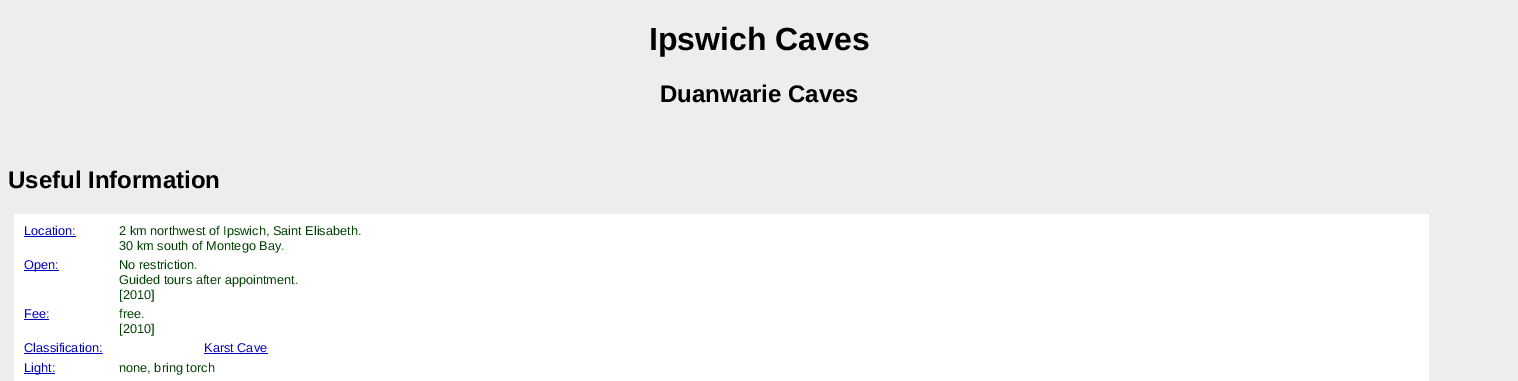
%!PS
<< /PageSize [1518 381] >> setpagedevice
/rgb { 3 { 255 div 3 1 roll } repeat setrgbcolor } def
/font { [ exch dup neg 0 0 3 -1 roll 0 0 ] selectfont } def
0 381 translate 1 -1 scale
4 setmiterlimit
237 237 237 rgb
0 0 1518 381 rectfill
[
  [14 214 1415 167 255 255 255]
  [24 236 52 1 0 0 192]
  [24 270 35 1 0 0 192]
  [24 319 25 1 0 0 192]
  [24 353 79 1 0 0 192]
  [204 353 64 1 0 0 192]
  [24 373 31 1 0 0 192]
] { aload pop rgb rectfill } forall
/LiberationSans-Bold 32 font
0 0 0 rgb
649 50 moveto (Ipswich Caves) show
/LiberationSans-Bold 24 font
660 102 moveto (Duanwarie Caves) show
8 188 moveto (Useful Information) show
/LiberationSans-Regular 12.75 font
0 0 192 rgb
24 235 moveto (Location:) show
0 64 0 rgb
119 235 moveto (2 km northwest of Ipswich, Saint Elisabeth.) show
119 250 moveto (30 km south of Montego Bay.) show
0 0 192 rgb
24 269 moveto (Open:) show
0 64 0 rgb
[
  [(No restriction.) 119 269]
  [(Guided tours after appointment.) 119 284]
  [([2010]) 119 299]
] { aload pop moveto show } forall
0 0 192 rgb
24 318 moveto (Fee:) show
0 64 0 rgb
119 318 moveto (free.) show
119 333 moveto ([2010]) show
0 0 192 rgb
[
  [(Classification:) 24 352]
  [(Karst Cave) 204 352]
  [(Light:) 24 372]
] { aload pop moveto show } forall
0 64 0 rgb
119 372 moveto (none, bring torch) show
showpage
